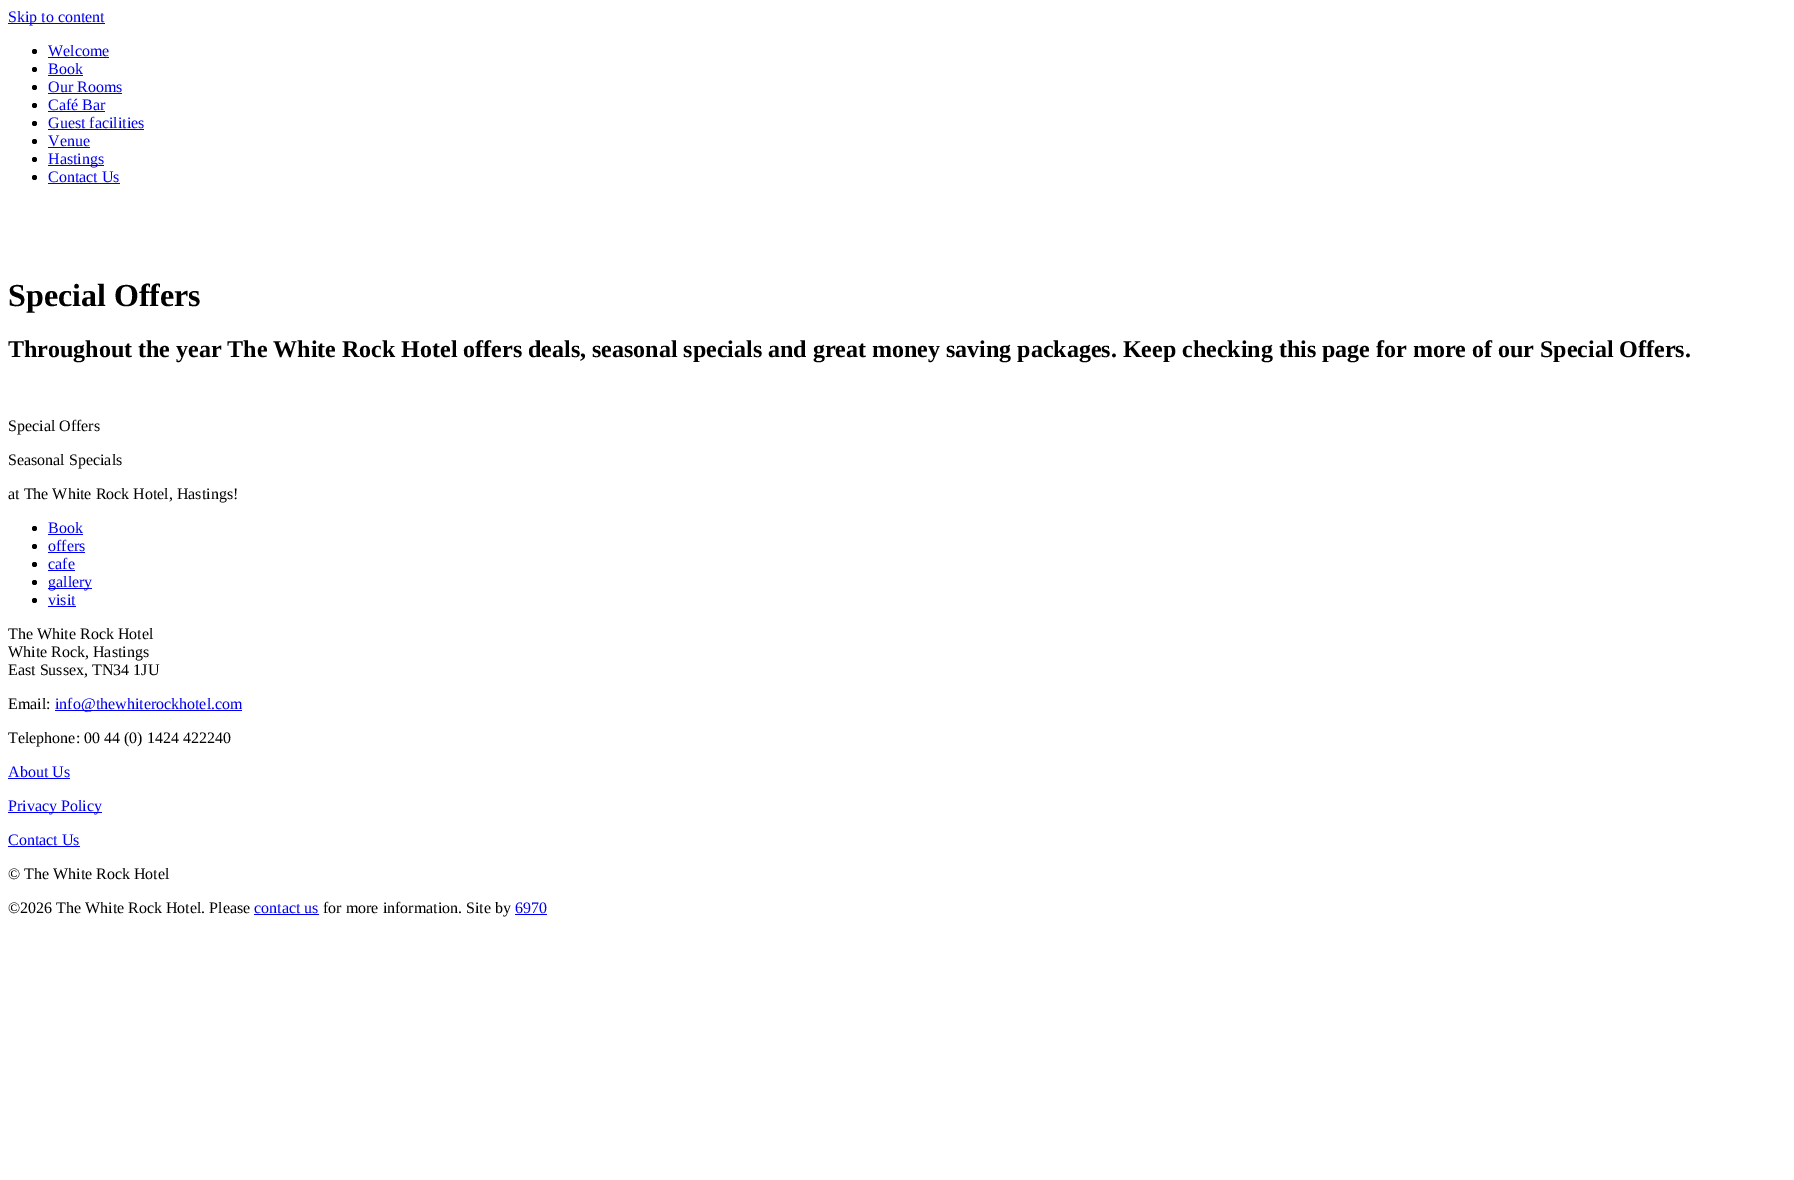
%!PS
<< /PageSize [1794 1180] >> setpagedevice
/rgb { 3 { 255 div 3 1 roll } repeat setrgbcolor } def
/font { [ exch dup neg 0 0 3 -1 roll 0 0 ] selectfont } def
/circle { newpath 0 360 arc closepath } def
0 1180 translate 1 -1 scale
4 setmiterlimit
255 255 255 rgb
0 0 1794 1180 rectfill
0 0 238 rgb
8 23 97 1 rectfill
0 0 0 rgb
34.5 51.5 2.5 circle fill
0 0 238 rgb
48 57 61 1 rectfill
0 0 0 rgb
34.5 69.5 2.5 circle fill
0 0 238 rgb
48 75 35 1 rectfill
0 0 0 rgb
34.5 87.5 2.5 circle fill
0 0 238 rgb
48 93 74 1 rectfill
0 0 0 rgb
34.5 105.5 2.5 circle fill
0 0 238 rgb
48 111 57 1 rectfill
0 0 0 rgb
34.5 123.5 2.5 circle fill
0 0 238 rgb
48 129 96 1 rectfill
0 0 0 rgb
34.5 141.5 2.5 circle fill
0 0 238 rgb
48 147 42 1 rectfill
0 0 0 rgb
34.5 159.5 2.5 circle fill
0 0 238 rgb
48 165 56 1 rectfill
0 0 0 rgb
34.5 177.5 2.5 circle fill
0 0 238 rgb
48 183 72 1 rectfill
0 0 0 rgb
34.5 528.5 2.5 circle fill
0 0 238 rgb
48 534 35 1 rectfill
0 0 0 rgb
34.5 546.5 2.5 circle fill
0 0 238 rgb
48 552 37 1 rectfill
0 0 0 rgb
34.5 564.5 2.5 circle fill
0 0 238 rgb
48 570 27 1 rectfill
0 0 0 rgb
34.5 582.5 2.5 circle fill
0 0 238 rgb
48 588 44 1 rectfill
0 0 0 rgb
34.5 600.5 2.5 circle fill
[
  [48 606 28 1 0 0 238]
  [55 710 187 1 0 0 238]
  [8 778 62 1 0 0 238]
  [8 812 94 1 0 0 238]
  [8 846 72 1 0 0 238]
  [254 914 65 1 0 0 238]
  [515 914 32 1 0 0 238]
] { aload pop rgb rectfill } forall
/LiberationSerif-Regular 16 font
[
  [(Skip to content) 8 22]
  [(Welcome) 48 56]
  [(Book) 48 74]
  [(Our Rooms) 48 92]
  [(Café Bar) 48 110]
  [(Guest facilities) 48 128]
  [(Venue) 48 146]
  [(Hastings) 48 164]
  [(Contact Us) 48 182]
] { aload pop moveto show } forall
/LiberationSerif-Bold 32 font
0 0 0 rgb
8 306 moveto (Special Offers) show
/LiberationSerif-Bold 24 font
8 357 moveto (Throughout the year The White Rock Hotel offers deals, seasonal specials and great money saving packages. Keep checking this page for more of our Special Offers.) show
/LiberationSerif-Regular 16 font
[
  [(Special Offers) 8 431]
  [(Seasonal Specials) 8 465]
  [(at The White Rock Hotel, Hastings!) 8 499]
] { aload pop moveto show } forall
0 0 238 rgb
[
  [(Book) 48 533]
  [(offers) 48 551]
  [(cafe) 48 569]
  [(gallery) 48 587]
  [(visit) 48 605]
] { aload pop moveto show } forall
0 0 0 rgb
[
  [(The White Rock Hotel) 8 639]
  [(White Rock, Hastings) 8 657]
  [(East Sussex, TN34 1JU) 8 675]
  [(Email:) 8 709]
] { aload pop moveto show } forall
0 0 238 rgb
55 709 moveto (info@thewhiterockhotel.com) show
0 0 0 rgb
8 743 moveto (Telephone: 00 44 \(0\) 1424 422240) show
0 0 238 rgb
[
  [(About Us) 8 777]
  [(Privacy Policy) 8 811]
  [(Contact Us) 8 845]
] { aload pop moveto show } forall
0 0 0 rgb
8 879 moveto (© The White Rock Hotel) show
8 913 moveto (©2026 The White Rock Hotel. Please) show
0 0 238 rgb
254 913 moveto (contact us) show
0 0 0 rgb
323 913 moveto (for more information. Site by) show
0 0 238 rgb
515 913 moveto (6970) show
showpage
